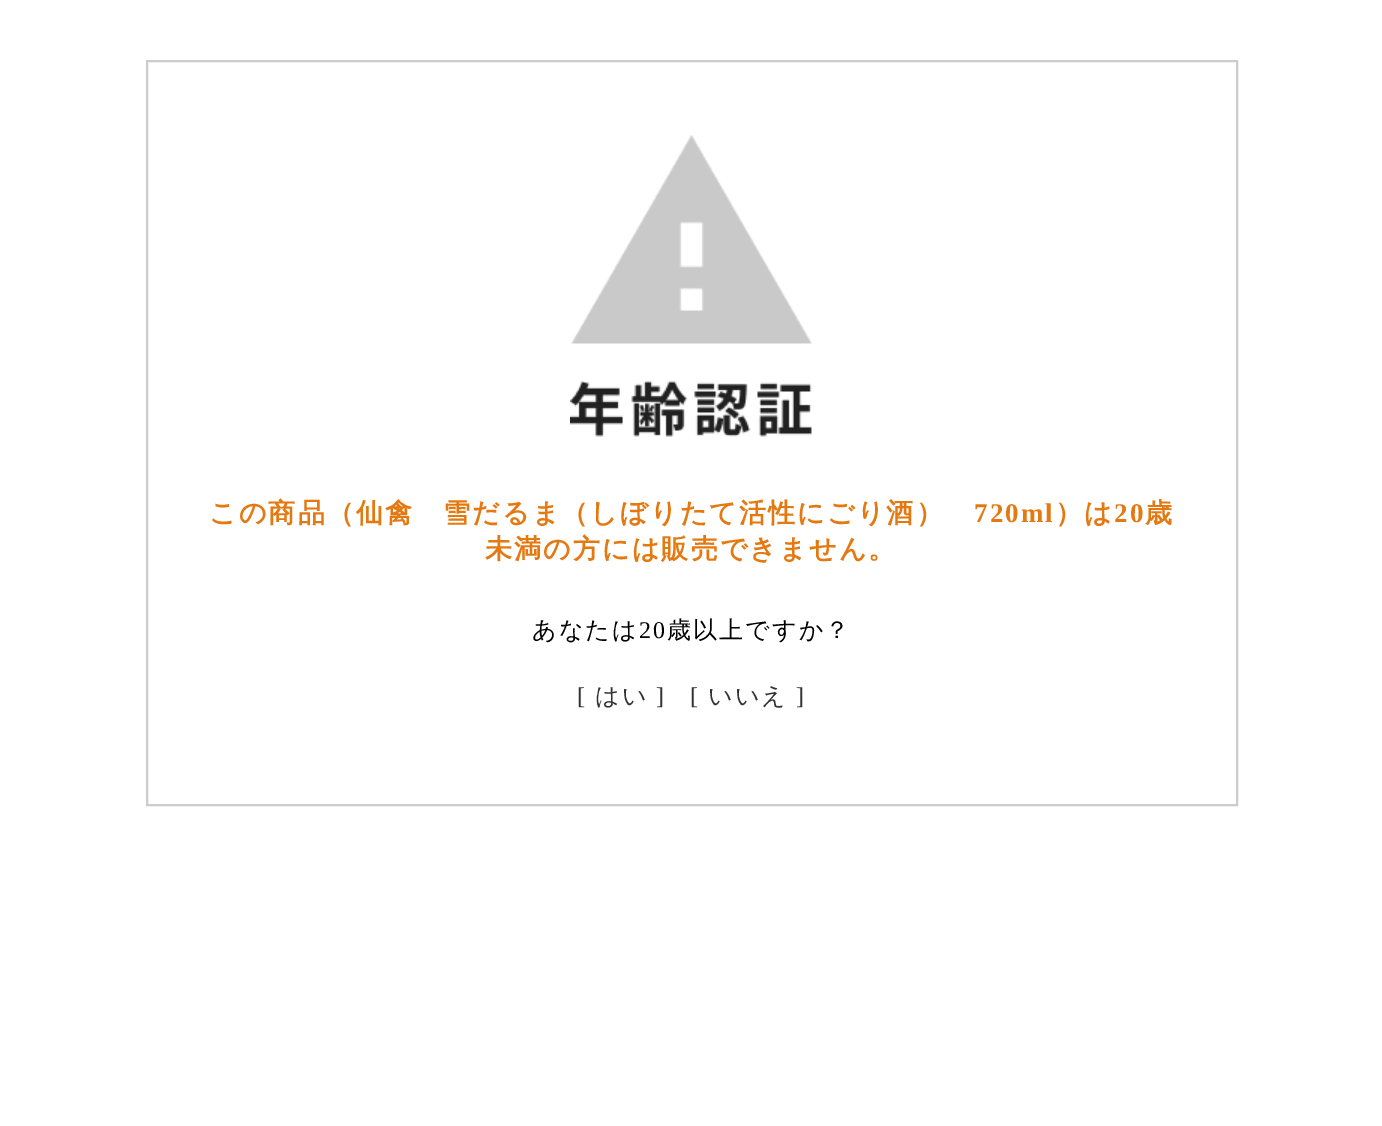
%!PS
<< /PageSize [1382 1126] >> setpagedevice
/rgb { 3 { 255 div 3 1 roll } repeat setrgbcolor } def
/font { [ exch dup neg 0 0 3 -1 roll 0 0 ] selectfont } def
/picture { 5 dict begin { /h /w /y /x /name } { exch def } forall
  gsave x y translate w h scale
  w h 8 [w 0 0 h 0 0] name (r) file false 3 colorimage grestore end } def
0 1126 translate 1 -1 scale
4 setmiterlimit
255 255 255 rgb
0 0 1382 1126 rectfill
204 204 204 rgb
2 setlinewidth
147 61 1090 744 rectstroke
(img/1.rgb) 570 135 242 302 picture
/WenQuanYiZenHei-Bold 27 font
228 121 17 rgb
209 522 moveto 2.1 0 (この商品（仙禽　雪だるま（しぼりたて活性にごり酒）) ashow
/LiberationSerif-Bold 27 font
974 522 moveto 2.1 0 (720ml) ashow
/WenQuanYiZenHei-Bold 27 font
1055 522 moveto 2.1 0 (）は) ashow
/LiberationSerif-Bold 27 font
1114 522 moveto 2.1 0 (20) ashow
/WenQuanYiZenHei-Bold 27 font
1145 522 moveto 2.1 0 (歳) ashow
485 558 moveto 2.1 0 (未満の方には販売できません。) ashow
/WenQuanYiZenHei-Medium 24 font
0 0 0 rgb
532 638 moveto 2.1 0 (あなたは) ashow
/LiberationSerif-Regular 24 font
639 638 moveto 2.1 0 (20) ashow
/WenQuanYiZenHei-Medium 24 font
667 638 moveto 2.1 0 (歳以上ですか？) ashow
/LiberationSerif-Regular 24 font
51 51 51 rgb
577 704 moveto 2.1 0 ([) ashow
/WenQuanYiZenHei-Medium 24 font
595 704 moveto 2.1 0 (はい) ashow
/LiberationSerif-Regular 24 font
656 704 moveto 2.1 0 (]) ashow
690 704 moveto 2.1 0 ([) ashow
/WenQuanYiZenHei-Medium 24 font
708 704 moveto 2.1 0 (いいえ) ashow
/LiberationSerif-Regular 24 font
796 704 moveto 2.1 0 (]) ashow
showpage
